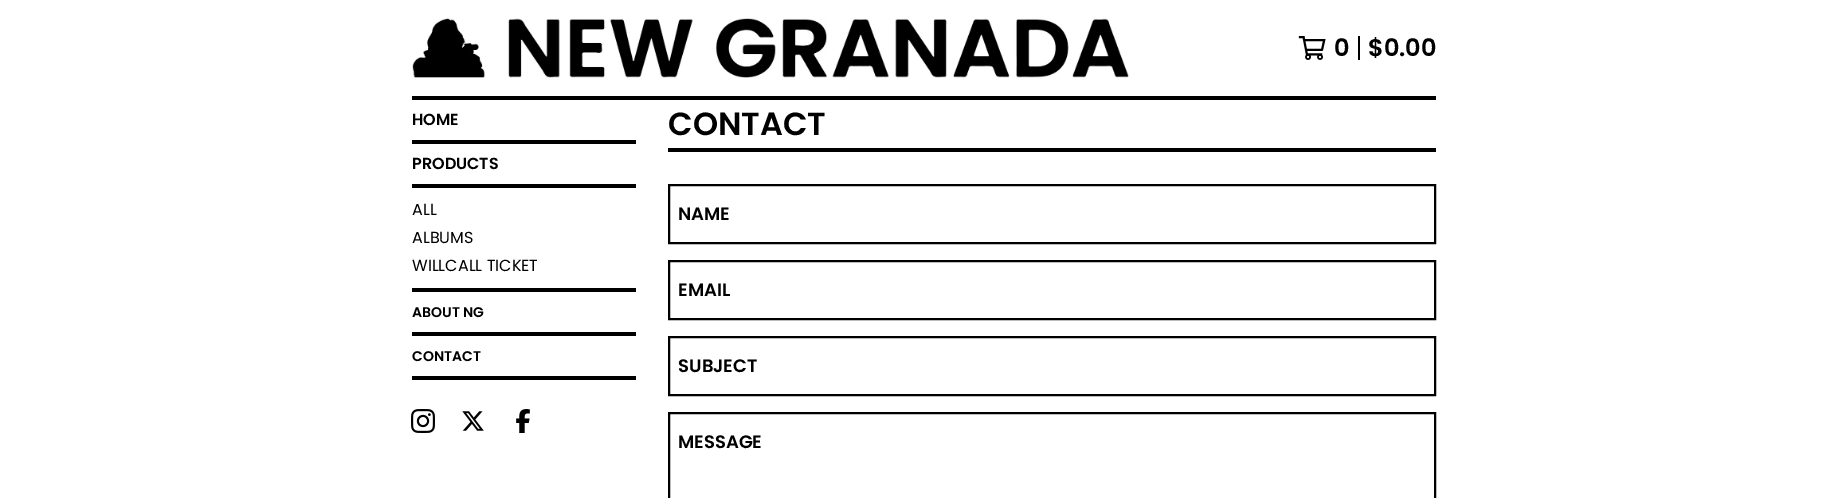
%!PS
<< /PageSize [1848 498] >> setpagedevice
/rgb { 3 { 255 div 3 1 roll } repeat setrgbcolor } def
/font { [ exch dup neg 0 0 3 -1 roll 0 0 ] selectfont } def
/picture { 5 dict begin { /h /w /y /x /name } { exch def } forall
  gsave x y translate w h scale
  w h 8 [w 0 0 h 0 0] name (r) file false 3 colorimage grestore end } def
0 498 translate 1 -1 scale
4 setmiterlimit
255 255 255 rgb
0 0 1848 498 rectfill
0 0 0 rgb
412 96 1024 4 rectfill
(img/1.rgb) 412 18 717 60 picture
(img/2.rgb) 1298 36 28 24 picture
[
  [1358 36 2 24 0 0 0]
  [412 140 224 4 0 0 0]
  [412 288 224 4 0 0 0]
  [412 184 224 4 0 0 0]
  [412 376 224 4 0 0 0]
  [412 332 224 4 0 0 0]
] { aload pop rgb rectfill } forall
(img/3.rgb) 411 409 24 24 picture
(img/4.rgb) 462 411 22 20 picture
(img/5.rgb) 516 409 14 24 picture
668 148 768 4 rectfill
2 setlinewidth
669 185 766 58 rectstroke
669 261 766 58 rectstroke
669 337 766 58 rectstroke
669 413 766 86 rectstroke
/Poppins-SemiBold 24 font
1334 56 moveto (0) show
1368 56 moveto ($0.00) show
/Poppins-SemiBold 16 font
412 125 moveto (HOME) show
412 169 moveto (PRODUCTS) show
/Poppins-Regular 16 font
[
  [(ALL) 412 215]
  [(ALBUMS) 412 243]
  [(WILLCALL TICKET) 412 271]
] { aload pop moveto show } forall
/Poppins-SemiBold 14 font
412 317 moveto (ABOUT NG) show
412 361 moveto (CONTACT) show
/Poppins-SemiBold 32 font
668 135 moveto (CONTACT) show
/Poppins-SemiBold 18 font
[
  [(NAME) 678 220]
  [(EMAIL) 678 296]
  [(SUBJECT) 678 372]
  [(MESSAGE) 678 448]
] { aload pop moveto show } forall
showpage
